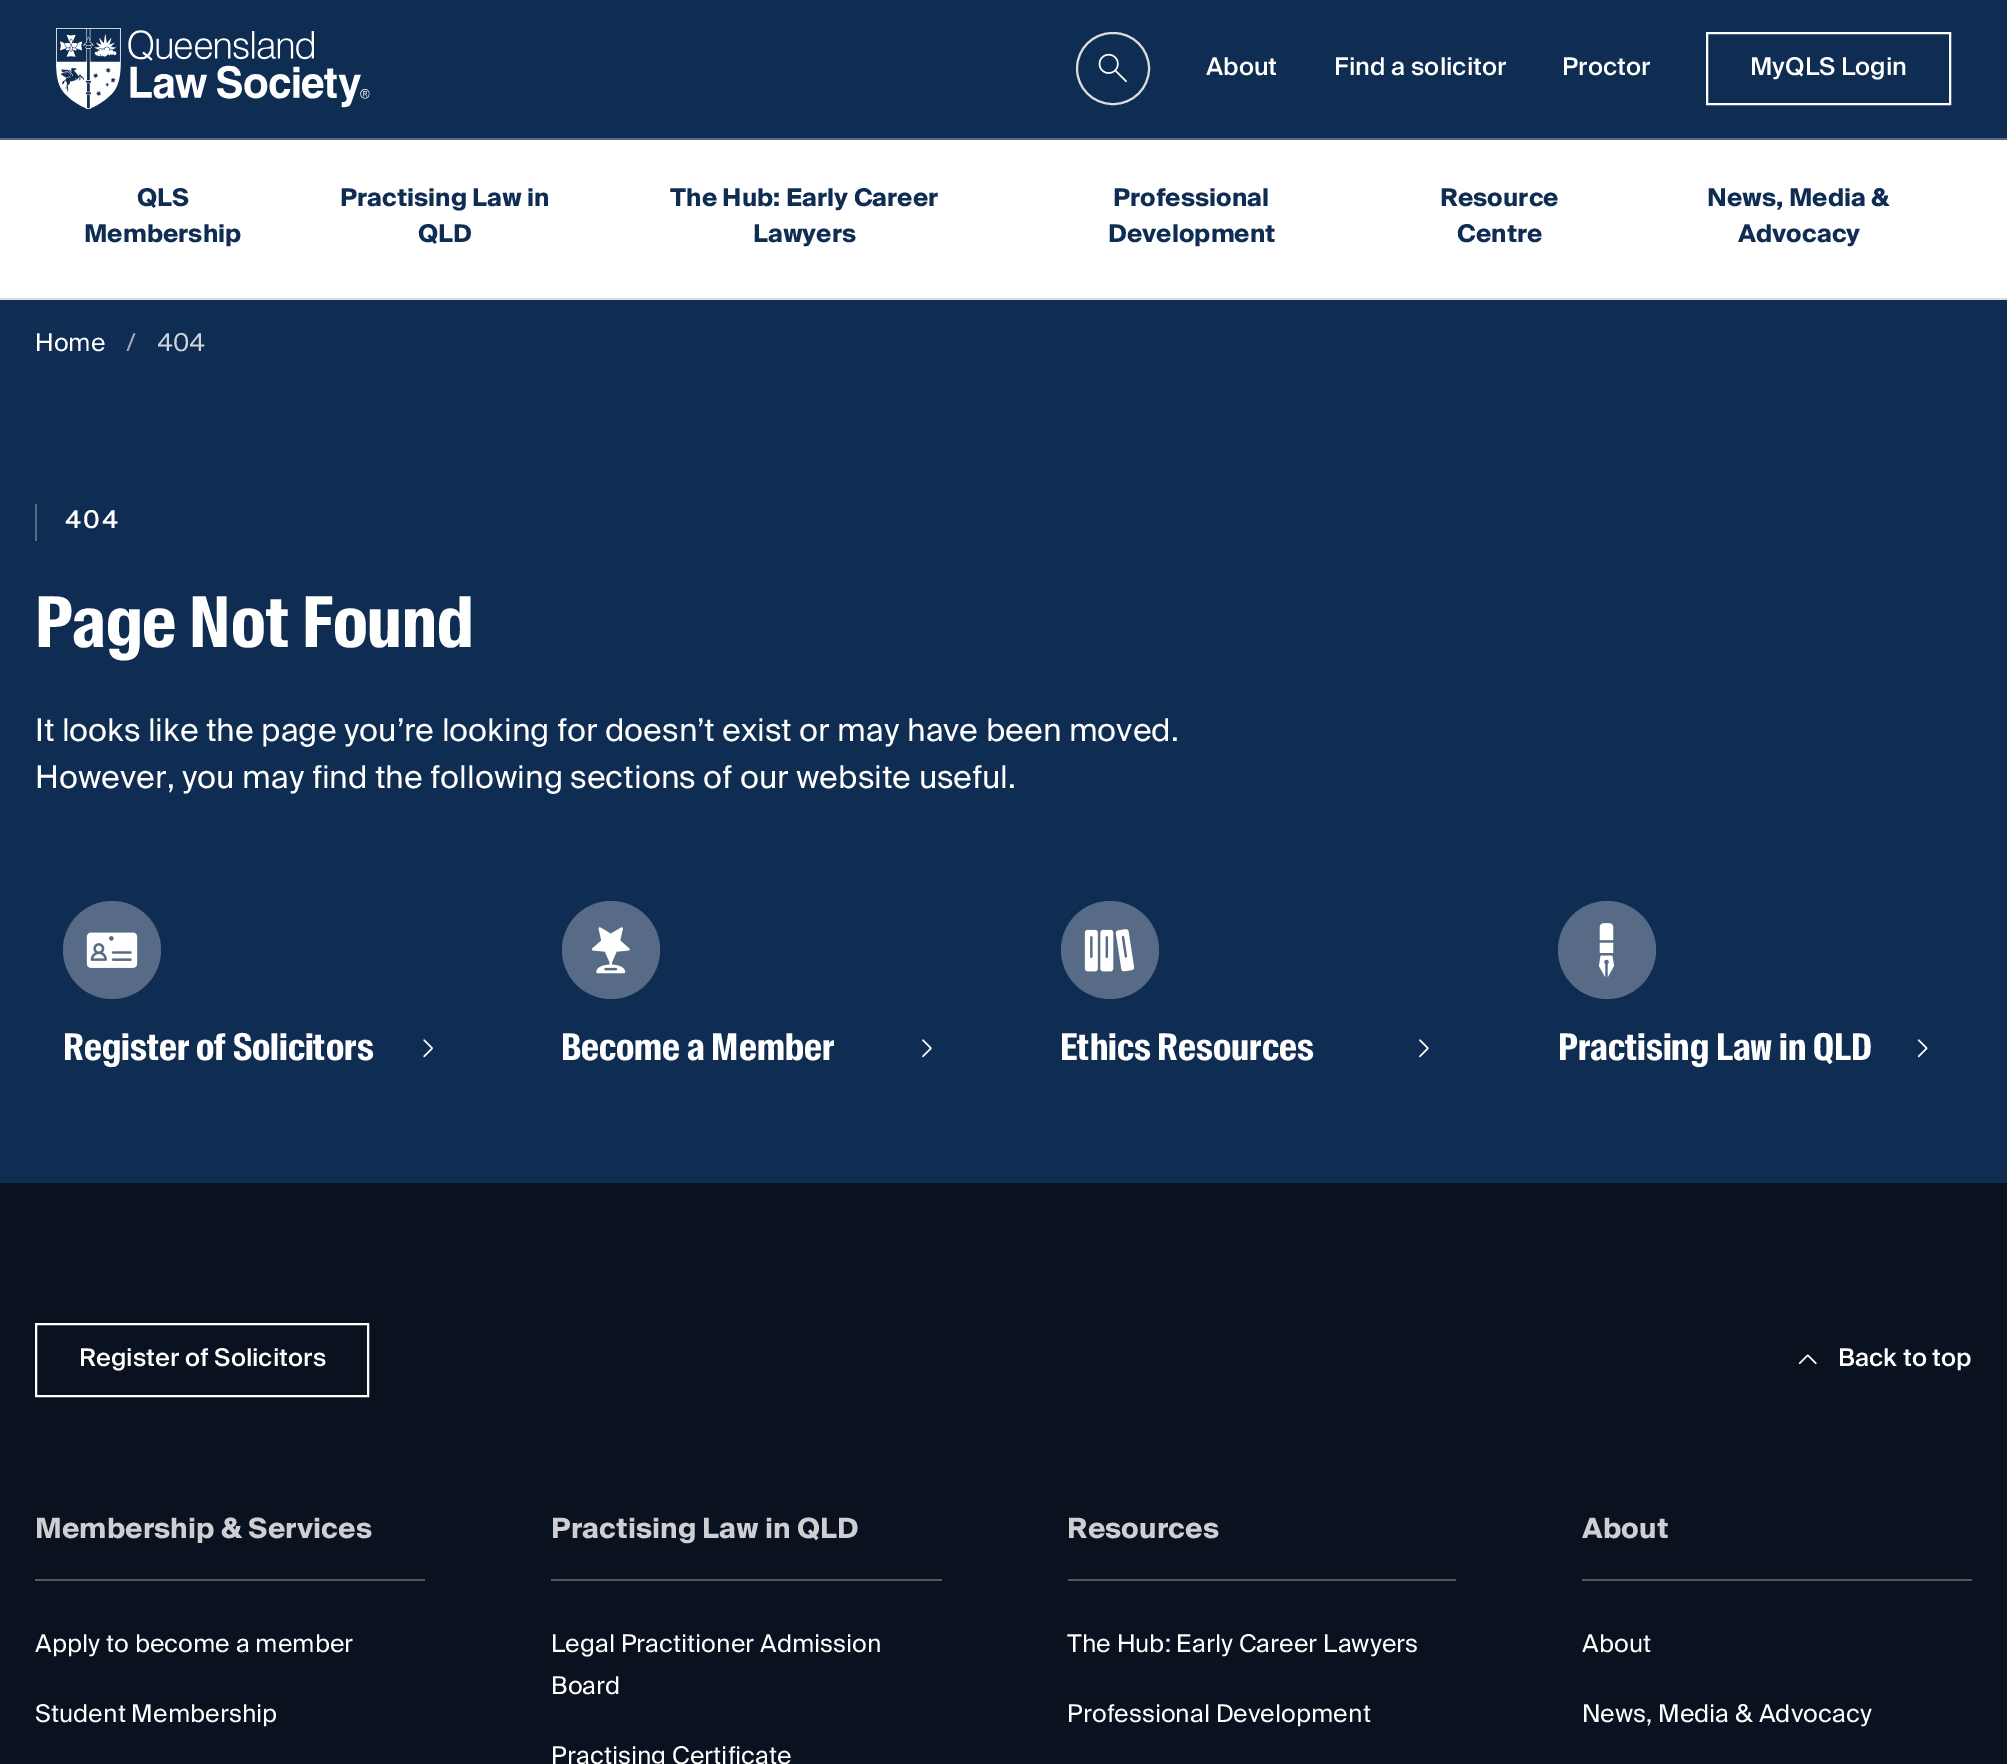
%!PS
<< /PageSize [2007 1764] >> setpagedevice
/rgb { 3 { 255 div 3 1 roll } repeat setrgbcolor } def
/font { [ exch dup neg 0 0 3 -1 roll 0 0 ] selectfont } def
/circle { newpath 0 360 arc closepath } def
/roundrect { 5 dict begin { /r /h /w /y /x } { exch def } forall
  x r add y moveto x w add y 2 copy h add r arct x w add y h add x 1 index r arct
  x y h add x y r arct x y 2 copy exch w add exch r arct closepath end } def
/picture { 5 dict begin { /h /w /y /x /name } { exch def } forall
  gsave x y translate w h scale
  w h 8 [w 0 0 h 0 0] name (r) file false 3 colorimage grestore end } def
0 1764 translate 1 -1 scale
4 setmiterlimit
255 255 255 rgb
0 0 2007 1764 rectfill
15 44 82 rgb
0 0 2007 138 rectfill
87 107 134 rgb
0 138 2007 2 rectfill
(img/1.rgb) 56 28 314 82 picture
220 221 222 rgb
2 setlinewidth
1077 33 72 71 35.5 roundrect stroke
(img/2.rgb) 1098 53 29 30 picture
255 255 255 rgb
1707 33 243 71 rectstroke
[
  [0 298 2007 2 220 221 222]
  [0 300 2007 883 15 44 82]
  [35 504 2 37 87 107 134]
] { aload pop rgb rectfill } forall
112 950 49 circle fill
(img/3.rgb) 86 932 52 36 picture
(img/4.rgb) 423 1039 10 19 picture
611 950 49 circle fill
(img/5.rgb) 591 927 39 47 picture
(img/6.rgb) 922 1039 10 19 picture
1110 950 49 circle fill
(img/7.rgb) 1084 929 51 43 picture
(img/6.rgb) 1419 1039 10 19 picture
1607 950 49 circle fill
(img/8.rgb) 1598 923 17 55 picture
(img/9.rgb) 1917 1039 11 19 picture
10 17 31 rgb
0 1183 2007 581 rectfill
255 255 255 rgb
36 1324 332 72 rectstroke
(img/10.rgb) 1798 1354 19 11 picture
[
  [35 1579 390 2 84 88 98]
  [551 1579 391 2 84 88 98]
  [1068 1579 388 2 84 88 98]
  [1582 1579 390 2 84 88 98]
] { aload pop rgb rectfill } forall
/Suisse-Medium 24.5 font
255 255 255 rgb
[
  [(About) 1206 75]
  [(Find a solicitor) 1334 75]
  [(Proctor) 1562 75]
  [(MyQLS Login) 1750 75]
] { aload pop moveto show } forall
/Suisse-Bold 24.5 font
15 44 82 rgb
[
  [(QLS) 137 206]
  [(Membership) 84 242]
  [(Practising Law in) 340 206]
  [(QLD) 418 242]
  [(The Hub: Early Career) 670 206]
  [(Lawyers) 753 242]
  [(Professional) 1113 206]
  [(Development) 1108 242]
  [(Resource) 1440 206]
  [(Centre) 1457 242]
  [(News, Media &) 1707 206]
  [(Advocacy) 1738 242]
] { aload pop moveto show } forall
/Suisse-Regular 24.5 font
255 255 255 rgb
35 351 moveto (Home) show
159 171 186 rgb
126 351 moveto (/) show
207 213 220 rgb
157 351 moveto (404) show
/Suisse-Medium 24.5 font
255 255 255 rgb
65 528 moveto 2 0 (404) ashow
/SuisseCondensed-Bold 70 font
35 647 moveto (Page Not Found) show
/Suisse-Regular 31.5 font
35 741 moveto (It looks like the page you’re looking for doesn’t exist or may have been moved.) show
35 788 moveto (However, you may find the following sections of our website useful.) show
/SuisseCondensed-Bold 36.75 font
[
  [(Register of Solicitors) 63 1060]
  [(Become a Member) 561 1060]
  [(Ethics Resources) 1060 1060]
  [(Practising Law in QLD) 1558 1060]
] { aload pop moveto show } forall
/Suisse-Medium 24.5 font
79 1366 moveto (Register of Solicitors) show
1838 1366 moveto (Back to top) show
/Suisse-Bold 28 font
206 207 210 rgb
35 1538 moveto (Membership & Services) show
/Suisse-Regular 24.5 font
255 255 255 rgb
35 1652 moveto (Apply to become a member) show
35 1722 moveto (Student Membership) show
/Suisse-Bold 28 font
206 207 210 rgb
551 1538 moveto (Practising Law in QLD) show
/Suisse-Regular 24.5 font
255 255 255 rgb
[
  [(Legal Practitioner Admission) 551 1652]
  [(Board) 551 1694]
  [(Practising Certificate) 551 1764]
] { aload pop moveto show } forall
/Suisse-Bold 28 font
206 207 210 rgb
1067 1538 moveto (Resources) show
/Suisse-Regular 24.5 font
255 255 255 rgb
1067 1652 moveto (The Hub: Early Career Lawyers) show
1067 1722 moveto (Professional Development) show
/Suisse-Bold 28 font
206 207 210 rgb
1582 1538 moveto (About) show
/Suisse-Regular 24.5 font
255 255 255 rgb
1582 1652 moveto (About) show
1582 1722 moveto (News, Media & Advocacy) show
showpage
